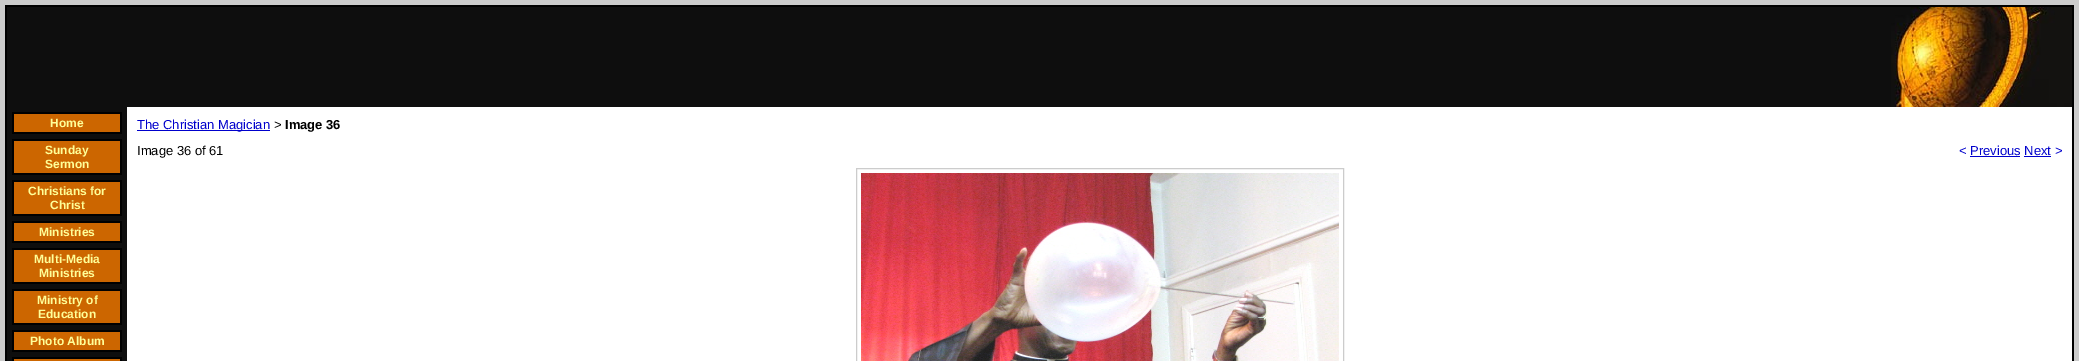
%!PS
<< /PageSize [2079 361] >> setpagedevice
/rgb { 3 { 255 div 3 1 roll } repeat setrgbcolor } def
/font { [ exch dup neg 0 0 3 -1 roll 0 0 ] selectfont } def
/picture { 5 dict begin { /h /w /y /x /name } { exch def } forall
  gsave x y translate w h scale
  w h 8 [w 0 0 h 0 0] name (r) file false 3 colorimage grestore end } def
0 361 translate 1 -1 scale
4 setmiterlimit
204 204 204 rgb
0 0 2079 361 rectfill
0 0 0 rgb
5 5 2069 356 rectfill
14 14 14 rgb
7 7 1884 100 rectfill
(img/1.rgb) 1891 7 181 100 picture
[
  [7 107 120 254 14 14 14]
  [12 112 110 22 0 0 0]
  [14 114 106 18 204 102 0]
  [12 139 110 36 0 0 0]
  [14 141 106 32 204 102 0]
  [12 180 110 36 0 0 0]
  [14 182 106 32 204 102 0]
  [12 221 110 22 0 0 0]
  [14 223 106 18 204 102 0]
  [12 248 110 36 0 0 0]
  [14 250 106 32 204 102 0]
  [12 289 110 36 0 0 0]
  [14 291 106 32 204 102 0]
  [12 330 110 22 0 0 0]
  [14 332 106 18 204 102 0]
  [12 357 110 4 0 0 0]
  [14 359 106 2 204 102 0]
  [127 107 1945 254 255 255 255]
  [137 130 133 1 0 0 204]
  [1970 156 50 1 0 0 204]
  [2024 156 27 1 0 0 204]
] { aload pop rgb rectfill } forall
204 204 204 rgb
856.5 168.5 487 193 rectstroke
(img/2.rgb) 861 173 478 188 picture
/LiberationSans-Bold 12 font
255 255 153 rgb
[
  [(Home) 50 127]
  [(Sunday) 45 154]
  [(Sermon) 45 168]
  [(Christians for) 28 195]
  [(Christ) 50 209]
  [(Ministries) 39 236]
  [(Multi-Media) 34 263]
  [(Ministries) 39 277]
  [(Ministry of) 37 304]
  [(Education) 38 318]
  [(Photo Album) 30 345]
] { aload pop moveto show } forall
/LiberationSans-Regular 13 font
0 0 204 rgb
137 129 moveto (The Christian Magician) show
/LiberationMono-Regular 13 font
0 0 0 rgb
274 129 moveto (>) show
/LiberationSans-Bold 13 font
285 129 moveto (Image 36) show
/LiberationSans-Regular 13 font
137 155 moveto (Image 36 of 61) show
0 0 204 rgb
1959 155 moveto (< Previous Next >) show
showpage
